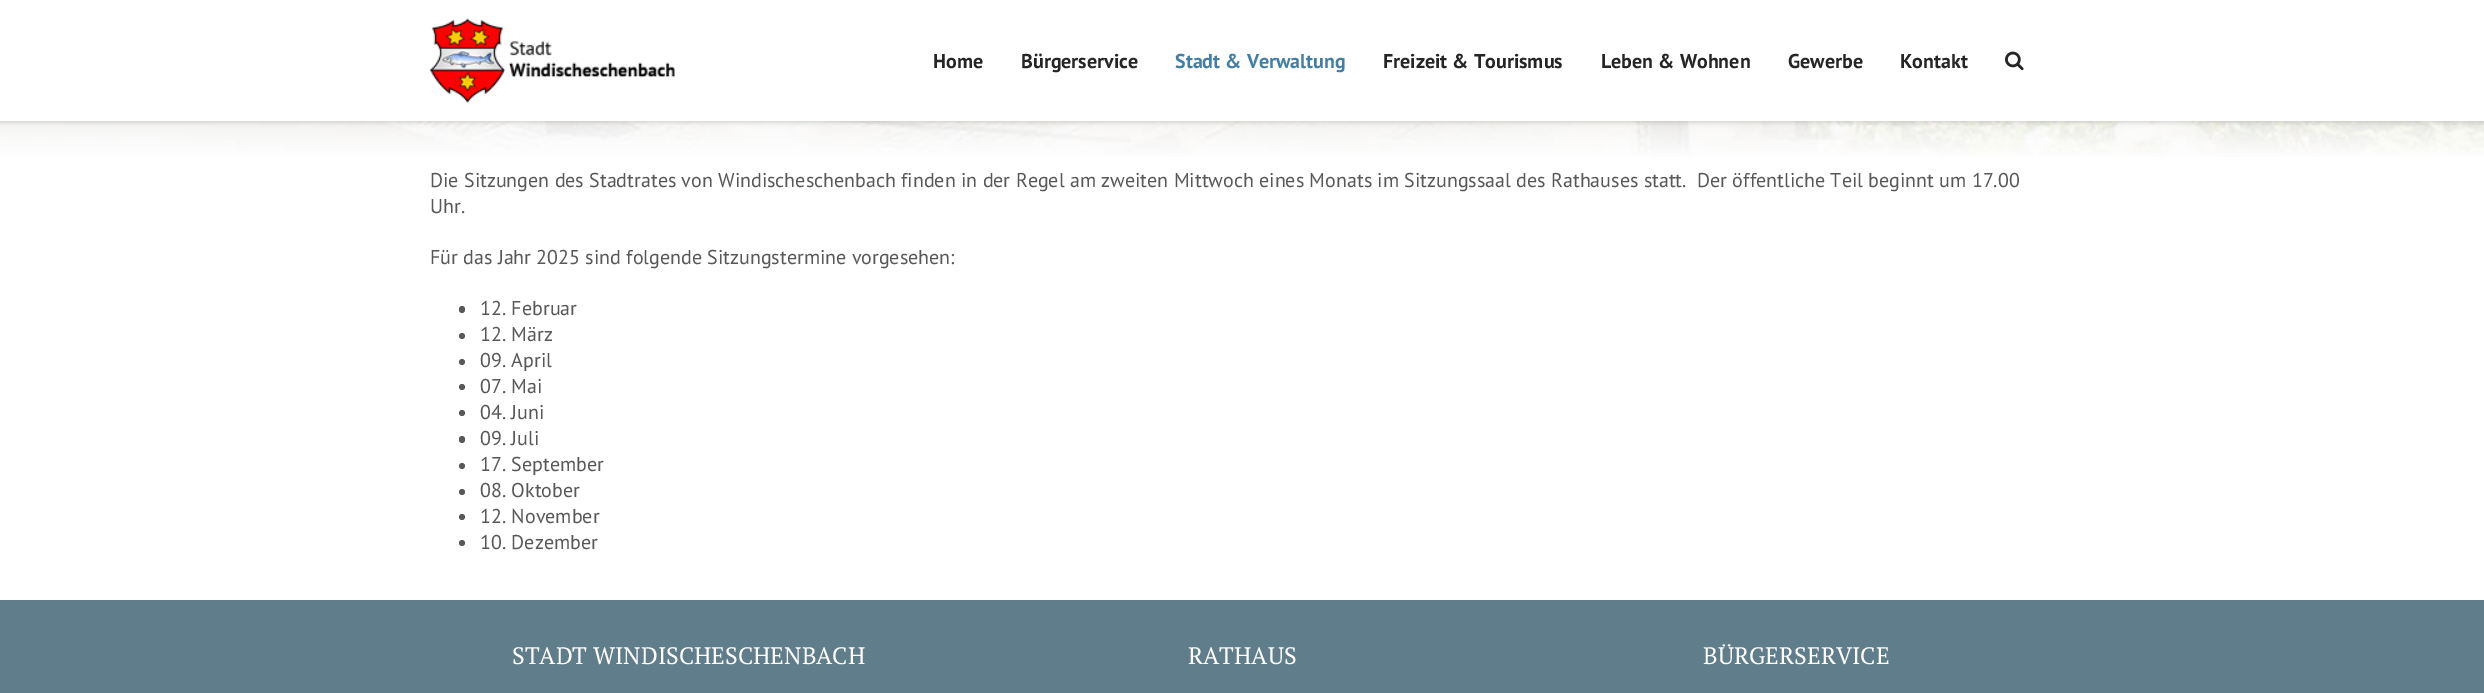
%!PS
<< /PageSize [2484 693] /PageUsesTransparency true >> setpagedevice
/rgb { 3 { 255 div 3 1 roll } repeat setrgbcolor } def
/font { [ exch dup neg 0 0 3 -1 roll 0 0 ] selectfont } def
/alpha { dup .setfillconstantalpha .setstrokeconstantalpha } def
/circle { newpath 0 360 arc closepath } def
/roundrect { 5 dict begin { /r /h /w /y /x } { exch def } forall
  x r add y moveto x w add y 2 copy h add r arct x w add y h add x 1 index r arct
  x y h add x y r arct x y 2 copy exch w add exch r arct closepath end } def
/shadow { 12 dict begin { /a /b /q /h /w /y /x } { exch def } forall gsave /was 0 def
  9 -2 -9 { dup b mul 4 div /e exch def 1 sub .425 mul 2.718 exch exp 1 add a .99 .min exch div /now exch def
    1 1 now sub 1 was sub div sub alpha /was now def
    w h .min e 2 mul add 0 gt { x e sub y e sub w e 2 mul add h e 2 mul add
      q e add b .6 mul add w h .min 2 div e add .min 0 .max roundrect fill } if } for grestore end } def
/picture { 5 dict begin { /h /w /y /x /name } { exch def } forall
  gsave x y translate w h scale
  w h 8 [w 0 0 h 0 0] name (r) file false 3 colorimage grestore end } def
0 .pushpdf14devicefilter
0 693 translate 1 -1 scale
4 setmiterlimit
255 255 255 rgb
0 0 2484 693 rectfill
(img/3.rgb) 0 121 2484 36 picture
0 0 0 rgb
0 1 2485 122 0 2 0.12 shadow
255 255 255 rgb
0 0 2484 121 rectfill
(img/1.rgb) 430 18 245 85 picture
(img/2.rgb) 2005 51 19 20 picture
88 88 88 rgb
459 306 6 7 3 roundrect fill
462 336 3 circle fill
462 362 3 circle fill
462 387 3 circle fill
462 413 3 circle fill
459 436 6 7 3 roundrect fill
462 466 3 circle fill
462 492 3 circle fill
462 517 3 circle fill
462 543 3 circle fill
96 125 139 rgb
0 600 2484 93 rectfill
/PTSans-Bold 20 font
37 37 37 rgb
933 68 moveto (Home) show
1021 68 moveto (Bürgerservice) show
67 126 165 rgb
1175 68 moveto (Stadt & Verwaltung) show
37 37 37 rgb
[
  [(Freizeit & Tourismus) 1383 68]
  [(Leben & Wohnen) 1601 68]
  [(Gewerbe) 1788 68]
  [(Kontakt) 1900 68]
] { aload pop moveto show } forall
/PTSans-Regular 20 font
88 88 88 rgb
[
  [(Die Sitzungen des Stadtrates von Windischeschenbach finden in der Regel am zweiten Mittwoch eines Monats im Sitzungssaal des Rathauses statt.  Der öffentliche Teil beginnt um 17.00) 430 187]
  [(Uhr.) 430 213]
  [(Für das Jahr 2025 sind folgende Sitzungstermine vorgesehen:) 430 264]
  [(12. Februar) 480 315]
  [(12. März) 480 341]
  [(09. April) 480 367]
  [(07. Mai) 480 393]
  [(04. Juni) 480 419]
  [(09. Juli) 480 445]
  [(17. September) 480 471]
  [(08. Oktober) 480 497]
  [(12. November) 480 523]
  [(10. Dezember) 480 549]
] { aload pop moveto show } forall
/PTSerif-Regular 23.75 font
255 255 255 rgb
[
  [(STADT WINDISCHESCHENBACH) 512 664]
  [(RATHAUS) 1188 664]
  [(BÜRGERSERVICE) 1703 664]
] { aload pop moveto show } forall
.poppdf14devicefilter showpage
